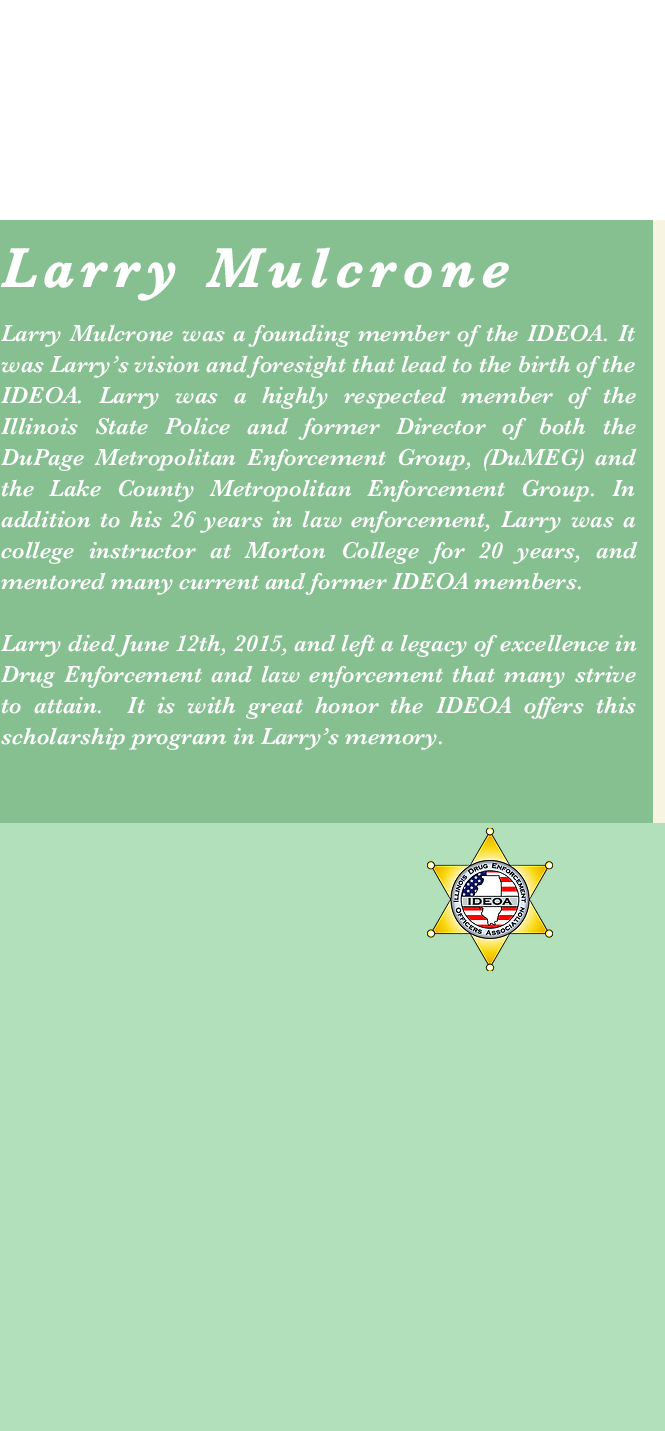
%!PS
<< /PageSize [665 1431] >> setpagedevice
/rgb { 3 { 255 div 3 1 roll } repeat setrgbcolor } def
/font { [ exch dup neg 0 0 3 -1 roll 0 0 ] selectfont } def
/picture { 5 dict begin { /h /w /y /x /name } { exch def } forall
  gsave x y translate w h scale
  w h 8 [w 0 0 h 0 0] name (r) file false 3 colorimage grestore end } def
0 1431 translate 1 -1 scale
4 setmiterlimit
178 224 187 rgb
0 0 665 1431 rectfill
[
  [0 0 665 220 255 255 255]
  [0 220 653 603 134 192 145]
  [653 220 12 603 247 245 225]
] { aload pop rgb rectfill } forall
(img/1.rgb) 427 828 126 143 picture
/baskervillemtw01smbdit-Bold 56 font
255 255 255 rgb
1 287 moveto 8.4 0 (Larry Mulcrone) ashow
/baskervillemtw01smbdit-Regular 24 font
1 341 moveto 2.25 0 32 (Larry Mulcrone was a founding member of the IDEOA. It) widthshow
1 372 moveto (was Larry’s vision and foresight that lead to the birth of the) show
1 403 moveto 9.25 0 32 (IDEOA. Larry was a highly respected member of the) widthshow
1 434 moveto 10.75 0 32 (Illinois State Police and former Director of both the) widthshow
1 465 moveto 5 0 32 (DuPage Metropolitan Enforcement Group, \(DuMEG\) and) widthshow
1 496 moveto 9.5 0 32 (the Lake County Metropolitan Enforcement Group. In) widthshow
1 527 moveto 3.1 0 32 (addition to his 26 years in law enforcement, Larry was a) widthshow
1 558 moveto 8.5 0 32 (college instructor at Morton College for 20 years, and) widthshow
1 589 moveto (mentored many current and former IDEOA members.) show
1 651 moveto 0.25 0 32 (Larry died June 12th, 2015, and left a legacy of excellence in) widthshow
1 682 moveto 3 0 32 (Drug Enforcement and law enforcement that many strive) widthshow
1 713 moveto 6.1 0 32 (to attain.  It is with great honor the IDEOA offers this) widthshow
1 744 moveto (scholarship program in Larry’s memory.) show
showpage
